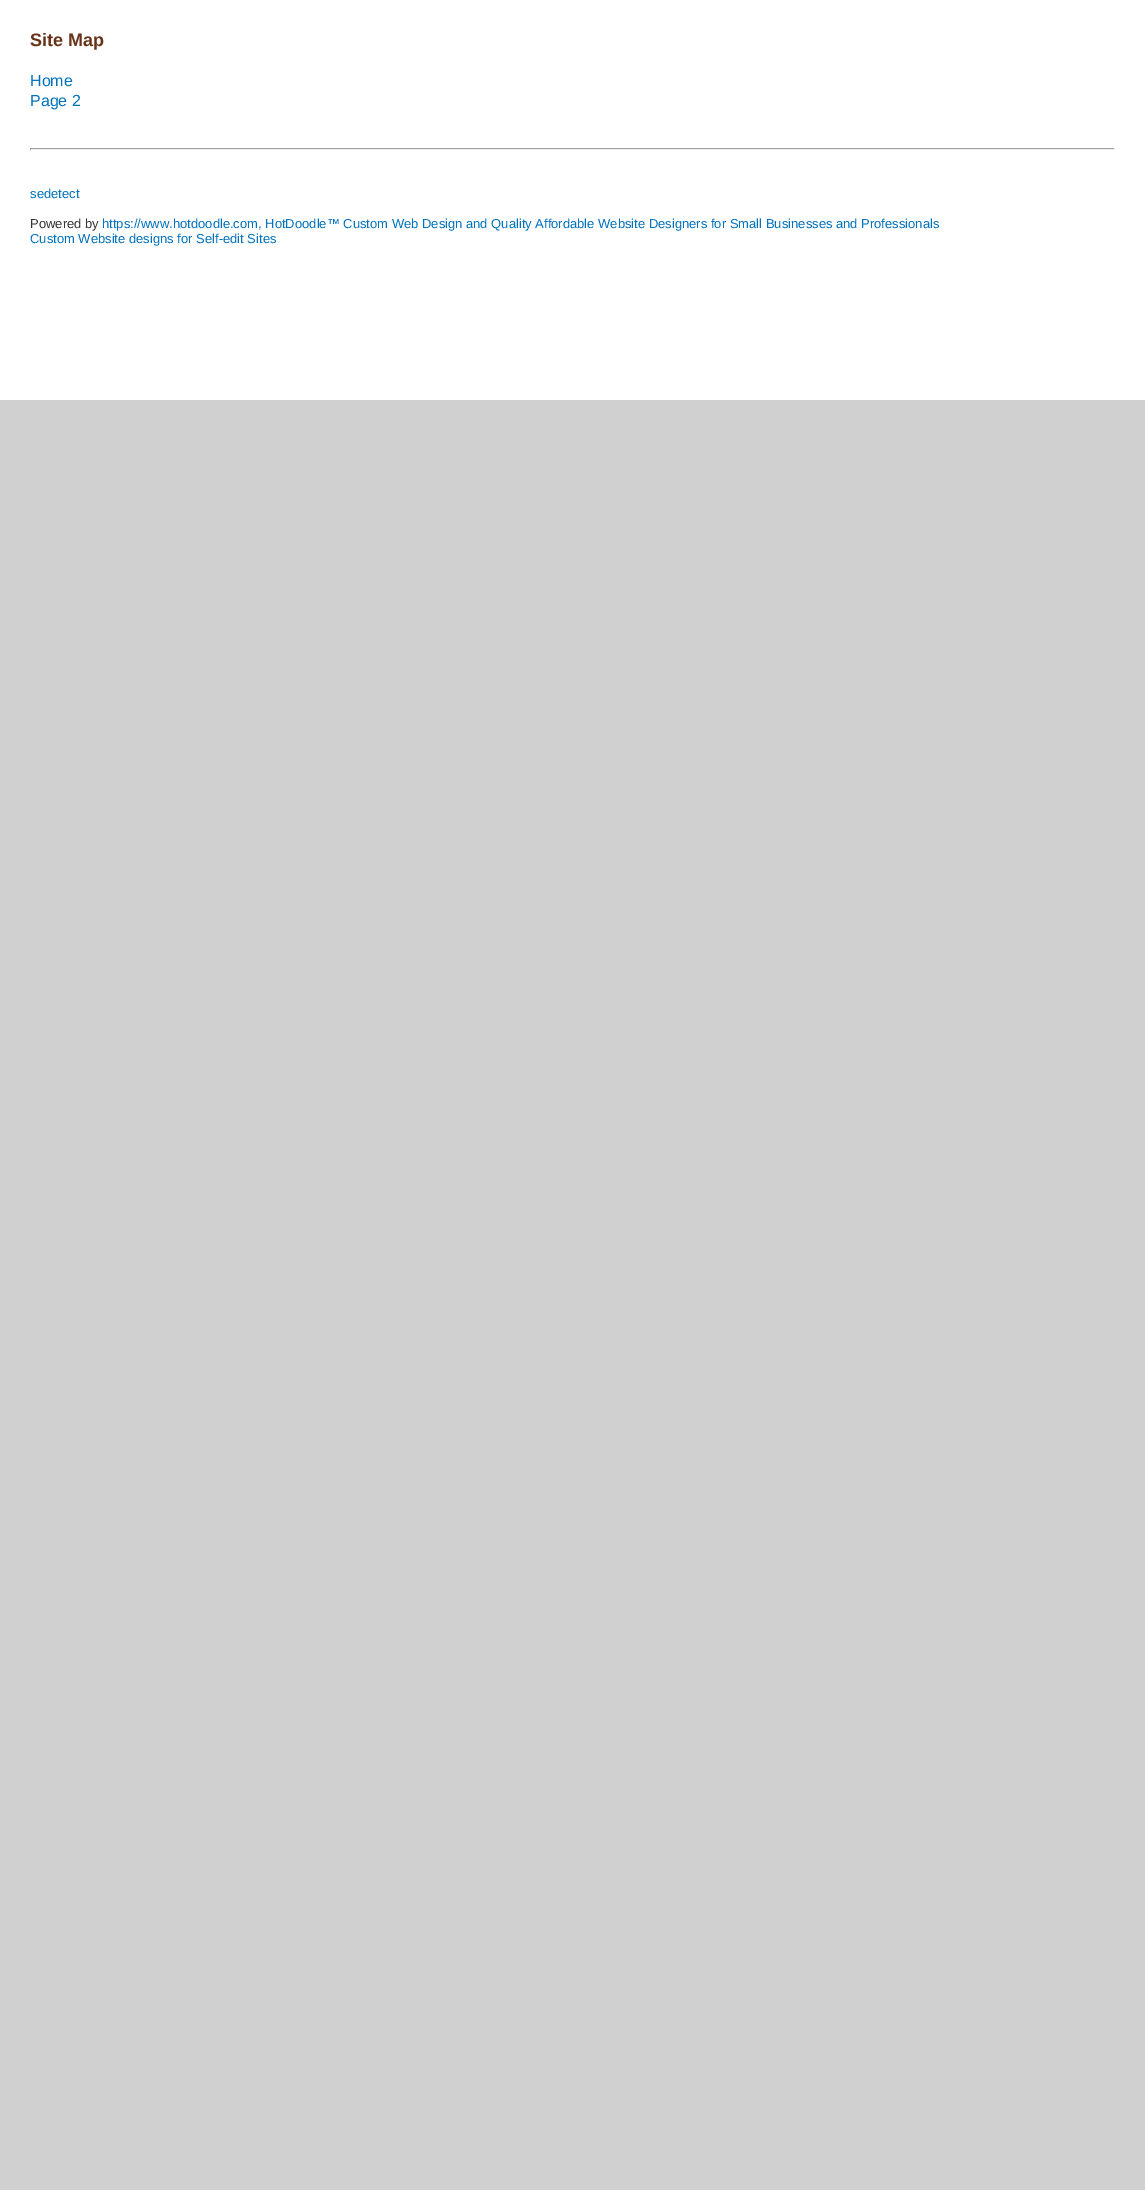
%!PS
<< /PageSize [1145 2190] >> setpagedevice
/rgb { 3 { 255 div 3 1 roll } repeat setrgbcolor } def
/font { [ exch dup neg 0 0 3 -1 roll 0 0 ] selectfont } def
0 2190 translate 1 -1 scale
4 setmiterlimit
208 208 208 rgb
0 0 1145 2190 rectfill
[
  [0 0 1145 400 255 255 255]
  [30 148 1085 1 159 159 159]
  [1114 148 1 2 238 238 238]
  [30 149 1085 1 238 238 238]
  [30 148 1 2 159 159 159]
] { aload pop rgb rectfill } forall
/LiberationSans-Bold 18 font
104 50 24 rgb
30 46 moveto (Site Map) show
/LiberationSans-Regular 16 font
0 113 189 rgb
30 86 moveto (Home) show
30 106 moveto (Page 2) show
/LiberationSans-Regular 13 font
30 198 moveto (sedetect) show
51 51 51 rgb
30 228 moveto (Powered by) show
0 113 189 rgb
102 228 moveto (https://www.hotdoodle.com, HotDoodle™ Custom Web Design and Quality Affordable Website Designers for Small Businesses and Professionals) show
30 243 moveto (Custom Website designs for Self-edit Sites) show
showpage
